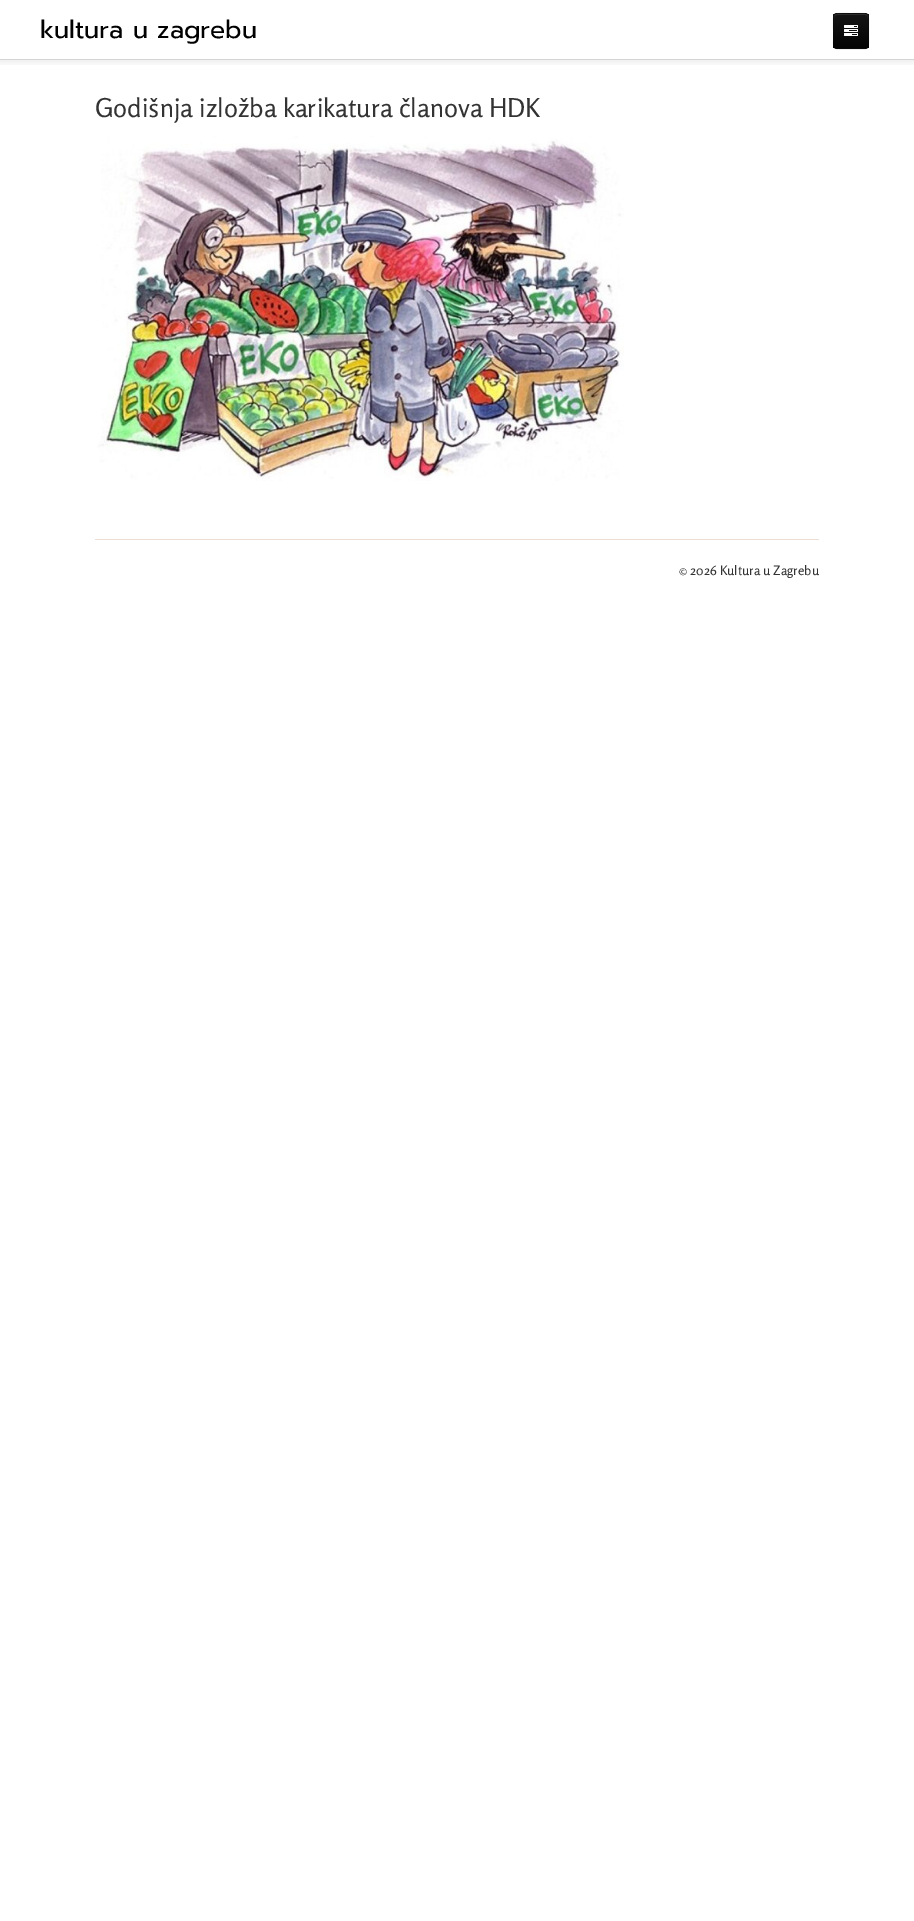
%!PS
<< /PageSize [914 1921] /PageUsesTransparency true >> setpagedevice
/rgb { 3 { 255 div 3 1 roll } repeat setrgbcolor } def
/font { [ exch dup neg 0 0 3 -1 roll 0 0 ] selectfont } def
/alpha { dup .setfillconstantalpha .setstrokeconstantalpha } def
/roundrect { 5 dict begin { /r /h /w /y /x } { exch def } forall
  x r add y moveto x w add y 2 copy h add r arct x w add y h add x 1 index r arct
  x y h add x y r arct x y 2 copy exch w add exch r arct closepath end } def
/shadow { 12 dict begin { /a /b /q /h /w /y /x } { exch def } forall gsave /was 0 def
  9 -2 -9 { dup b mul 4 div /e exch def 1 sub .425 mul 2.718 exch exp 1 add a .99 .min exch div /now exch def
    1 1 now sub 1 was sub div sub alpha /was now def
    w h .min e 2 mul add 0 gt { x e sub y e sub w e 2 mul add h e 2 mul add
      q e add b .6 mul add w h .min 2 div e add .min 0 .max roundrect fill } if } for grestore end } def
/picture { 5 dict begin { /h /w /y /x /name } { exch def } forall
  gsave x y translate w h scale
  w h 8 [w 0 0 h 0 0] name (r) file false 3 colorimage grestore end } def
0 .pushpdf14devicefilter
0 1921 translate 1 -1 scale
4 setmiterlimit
255 255 255 rgb
0 0 914 1921 rectfill
gsave
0 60 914 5 rectclip
0 0 0 rgb
0 1 914 60 0 5 0.1 shadow
grestore
212 212 212 rgb
0 59 914 1 rectfill
14 14 14 rgb
833 13 36 36 4 roundrect fill
gsave
833 13 36 36 4 roundrect clip newpath
gsave 833 14 moveto 869 14 lineto 869 48 lineto 833 48 lineto closepath clip newpath
<< /ShadingType 2 /ColorSpace /DeviceRGB /Coords [851 14 851 48] /Extend [true true] /Function << /FunctionType 2 /Domain [0 1] /C0 [0.082 0.082 0.082] /C1 [0.016 0.016 0.016] /N 1 >> >> shfill grestore
grestore
44 44 44 rgb
837 15 moveto 865 15 lineto 867 15 868 16 868 18 curveto 868 13 864.5 14 860.5 14 curveto 841.5 14 lineto 837.5 14 834 13 834 18 curveto 834 16 835 15 837 15 curveto closepath fill
0.25 alpha
0 0 0 rgb
867.5 47.5 moveto 867 48 866 48.5 865 48.5 curveto 837 48.5 lineto 836 48.5 835 48 834.5 47.5 curveto stroke
0.1 alpha
834.5 47.5 moveto 833 45.5 833.5 42 833.5 40.5 curveto 833.5 31 lineto 833.5 10.5 830.5 13.5 851 13.5 curveto 871.5 13.5 868.5 10.5 868.5 31 curveto 868.5 40.5 lineto 868.5 42 869 45.5 867.5 47.5 curveto stroke
1 alpha
(img/1.rgb) 844 25 14 11 picture
(img/2.rgb) 97 136 527 345 picture
234 222 213 rgb
95 539 724 1 rectfill
/Prompt-Regular 25 font
0 0 0 rgb
40 38 moveto (kultura u zagrebu) show
/Rosario-Regular 26 font
51 51 51 rgb
95 117 moveto (Godišnja izložba karikatura članova HDK) show
/Rosario-Regular 13 font
679 575 moveto (© 2026 Kultura u Zagrebu) show
.poppdf14devicefilter showpage
